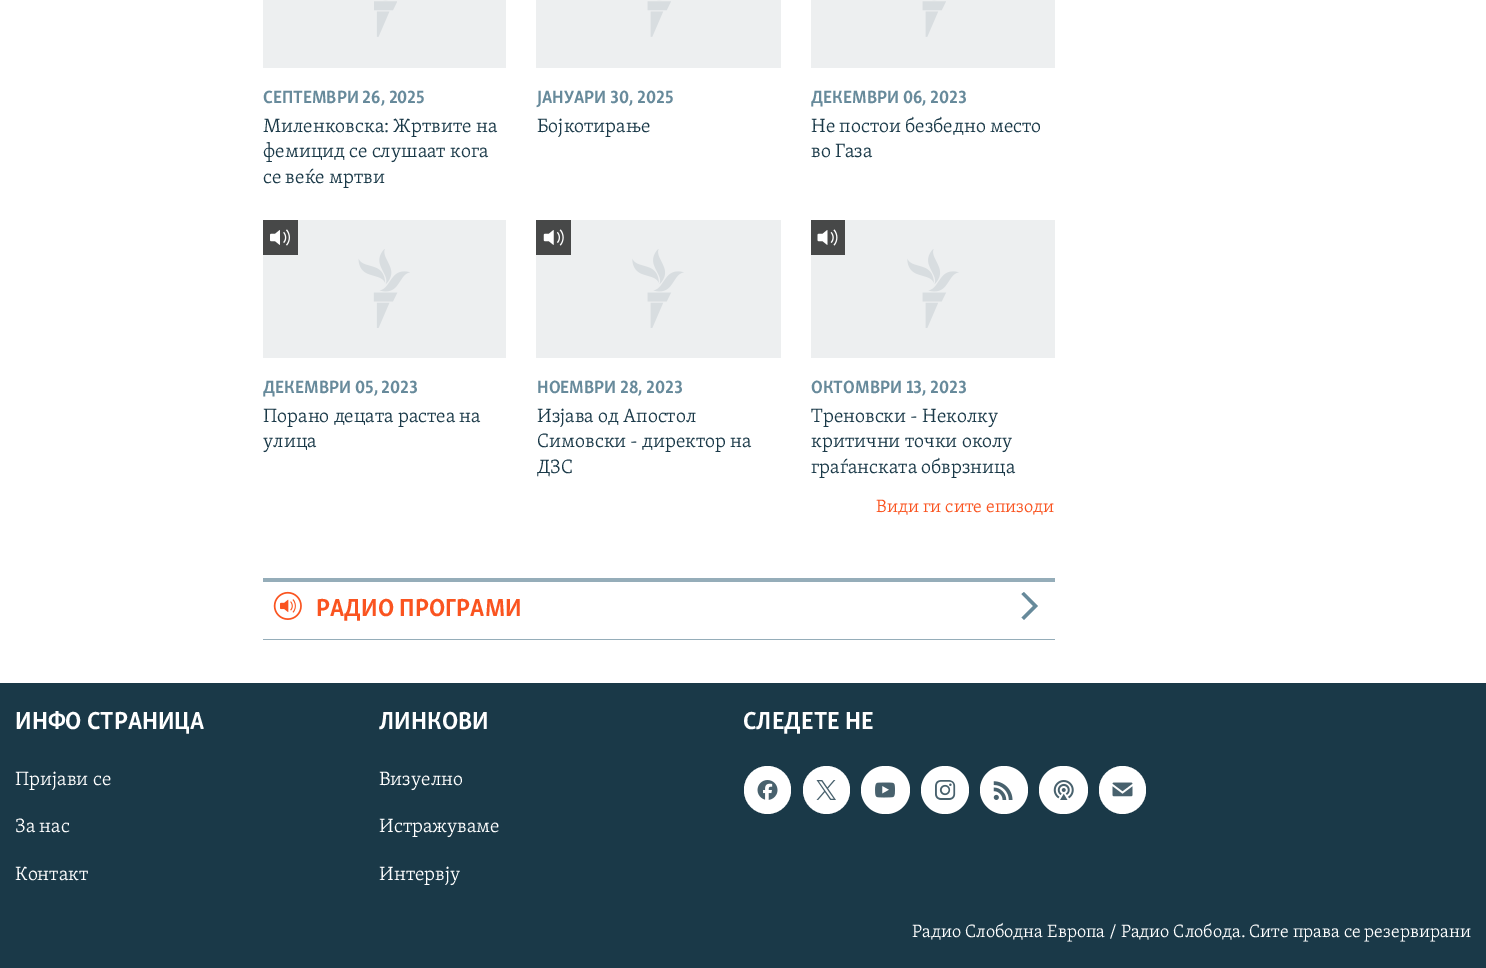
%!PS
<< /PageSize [1486 968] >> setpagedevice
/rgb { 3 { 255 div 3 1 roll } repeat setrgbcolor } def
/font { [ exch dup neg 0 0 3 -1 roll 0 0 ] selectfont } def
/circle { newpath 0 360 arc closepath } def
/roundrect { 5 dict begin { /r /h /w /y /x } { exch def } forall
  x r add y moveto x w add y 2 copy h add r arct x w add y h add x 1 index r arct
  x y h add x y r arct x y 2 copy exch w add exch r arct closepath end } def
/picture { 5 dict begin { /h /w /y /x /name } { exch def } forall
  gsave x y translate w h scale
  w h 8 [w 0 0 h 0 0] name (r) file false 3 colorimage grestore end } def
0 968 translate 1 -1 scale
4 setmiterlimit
255 255 255 rgb
0 0 1486 968 rectfill
237 239 240 rgb
263 0 243 68 rectfill
(img/1.rgb) 374 0 23 37 picture
536 0 245 68 rectfill
(img/2.rgb) 647 0 24 37 picture
811 0 244 68 rectfill
(img/2.rgb) 922 0 24 37 picture
263 220 243 138 rectfill
(img/3.rgb) 358 249 52 79 picture
71 72 72 rgb
263 220 35 35 rectfill
(img/4.rgb) 270 229 20 17 picture
237 239 240 rgb
536 220 245 138 rectfill
(img/5.rgb) 632 249 52 79 picture
71 72 72 rgb
536 220 35 35 rectfill
(img/6.rgb) 543 229 21 17 picture
237 239 240 rgb
811 220 244 138 rectfill
(img/5.rgb) 907 249 52 79 picture
71 72 72 rgb
811 220 34 35 rectfill
(img/7.rgb) 817 229 21 17 picture
149 173 185 rgb
263 578 792 4 rectfill
263 639 792 1 rectfill
(img/8.rgb) 273 591 29 29 picture
103 138 155 rgb
1024 620 moveto 1038 606 lineto 1024 592 lineto 1021.5 594 lineto 1033 606 lineto 1021.5 617.5 lineto closepath fill
26 57 72 rgb
0 683 1486 285 rectfill
255 255 255 rgb
744 766 47 48 23.5 roundrect fill
(img/9.rgb) 757 780 21 20 picture
803 766 47 48 23.5 roundrect fill
(img/10.rgb) 816 780 20 20 picture
861 766 49 48 24 roundrect fill
(img/11.rgb) 875 782 20 16 picture
945 790 24 circle fill
(img/12.rgb) 935 780 21 20 picture
1004 790 24 circle fill
(img/13.rgb) 993 781 20 19 picture
1039 766 49 48 24 roundrect fill
(img/14.rgb) 1053 780 21 20 picture
1099 766 47 48 23.5 roundrect fill
(img/15.rgb) 1112 782 21 15 picture
/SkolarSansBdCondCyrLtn-Bold 18.25 font
103 138 155 rgb
263 103 moveto (СЕПТЕМВРИ 26, 2025) show
/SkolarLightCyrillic-Light 19.75 font
26 57 72 rgb
[
  [(Миленковска: Жртвите на) 263 132]
  [(фемицид се слушаат кога) 263 157]
  [(се веќе мртви) 263 183]
] { aload pop moveto show } forall
/SkolarSansBdCondCyrLtn-Bold 18.25 font
103 138 155 rgb
537 103 moveto (ЈАНУАРИ 30, 2025) show
/SkolarLightCyrillic-Light 19.75 font
26 57 72 rgb
537 132 moveto (Бојкотирање) show
/SkolarSansBdCondCyrLtn-Bold 18.25 font
103 138 155 rgb
811 103 moveto (ДЕКЕМВРИ 06, 2023) show
/SkolarLightCyrillic-Light 19.75 font
26 57 72 rgb
811 132 moveto (Не постои безбедно место) show
811 157 moveto (во Газа) show
/SkolarSansBdCondCyrLtn-Bold 18.25 font
103 138 155 rgb
263 393 moveto (ДЕКЕМВРИ 05, 2023) show
/SkolarLightCyrillic-Light 19.75 font
26 57 72 rgb
263 422 moveto (Порано децата растеа на) show
263 447 moveto (улица) show
/SkolarSansBdCondCyrLtn-Bold 18.25 font
103 138 155 rgb
537 393 moveto (НОЕМВРИ 28, 2023) show
/SkolarLightCyrillic-Light 19.75 font
26 57 72 rgb
[
  [(Изјава од Апостол) 537 422]
  [(Симовски - директор на) 537 447]
  [(ДЗС) 537 473]
] { aload pop moveto show } forall
/SkolarSansBdCondCyrLtn-Bold 18.25 font
103 138 155 rgb
811 393 moveto (ОКТОМВРИ 13, 2023) show
/SkolarLightCyrillic-Light 19.75 font
26 57 72 rgb
[
  [(Треновски - Неколку) 811 422]
  [(критични точки околу) 811 447]
  [(граѓанската обврзница) 811 473]
] { aload pop moveto show } forall
/SkolarLightCyrillic-Light 18.25 font
250 84 32 rgb
876 512 moveto (Види ги сите епизоди) show
/SkolarSansBdCondCyrLtn-Bold 25.25 font
316 616 moveto (РАДИО ПРОГРАМИ) show
255 255 255 rgb
15 729 moveto (ИНФО СТРАНИЦА) show
/SkolarLightCyrillic-Light 19.75 font
[
  [(Пријави се) 15 785]
  [(За нас) 15 832]
  [(Контакт) 15 880]
] { aload pop moveto show } forall
/SkolarSansBdCondCyrLtn-Bold 25.25 font
379 729 moveto (ЛИНКОВИ) show
/SkolarLightCyrillic-Light 19.75 font
[
  [(Визуелно) 379 785]
  [(Истражуваме) 379 832]
  [(Интервју) 379 880]
] { aload pop moveto show } forall
/SkolarSansBdCondCyrLtn-Bold 25.25 font
743 729 moveto (СЛЕДЕТЕ НЕ) show
/SkolarLightCyrillic-Light 18.25 font
912 937 moveto (Радио Слободна Европа / Радио Слобода. Сите права се резервирани) show
showpage
